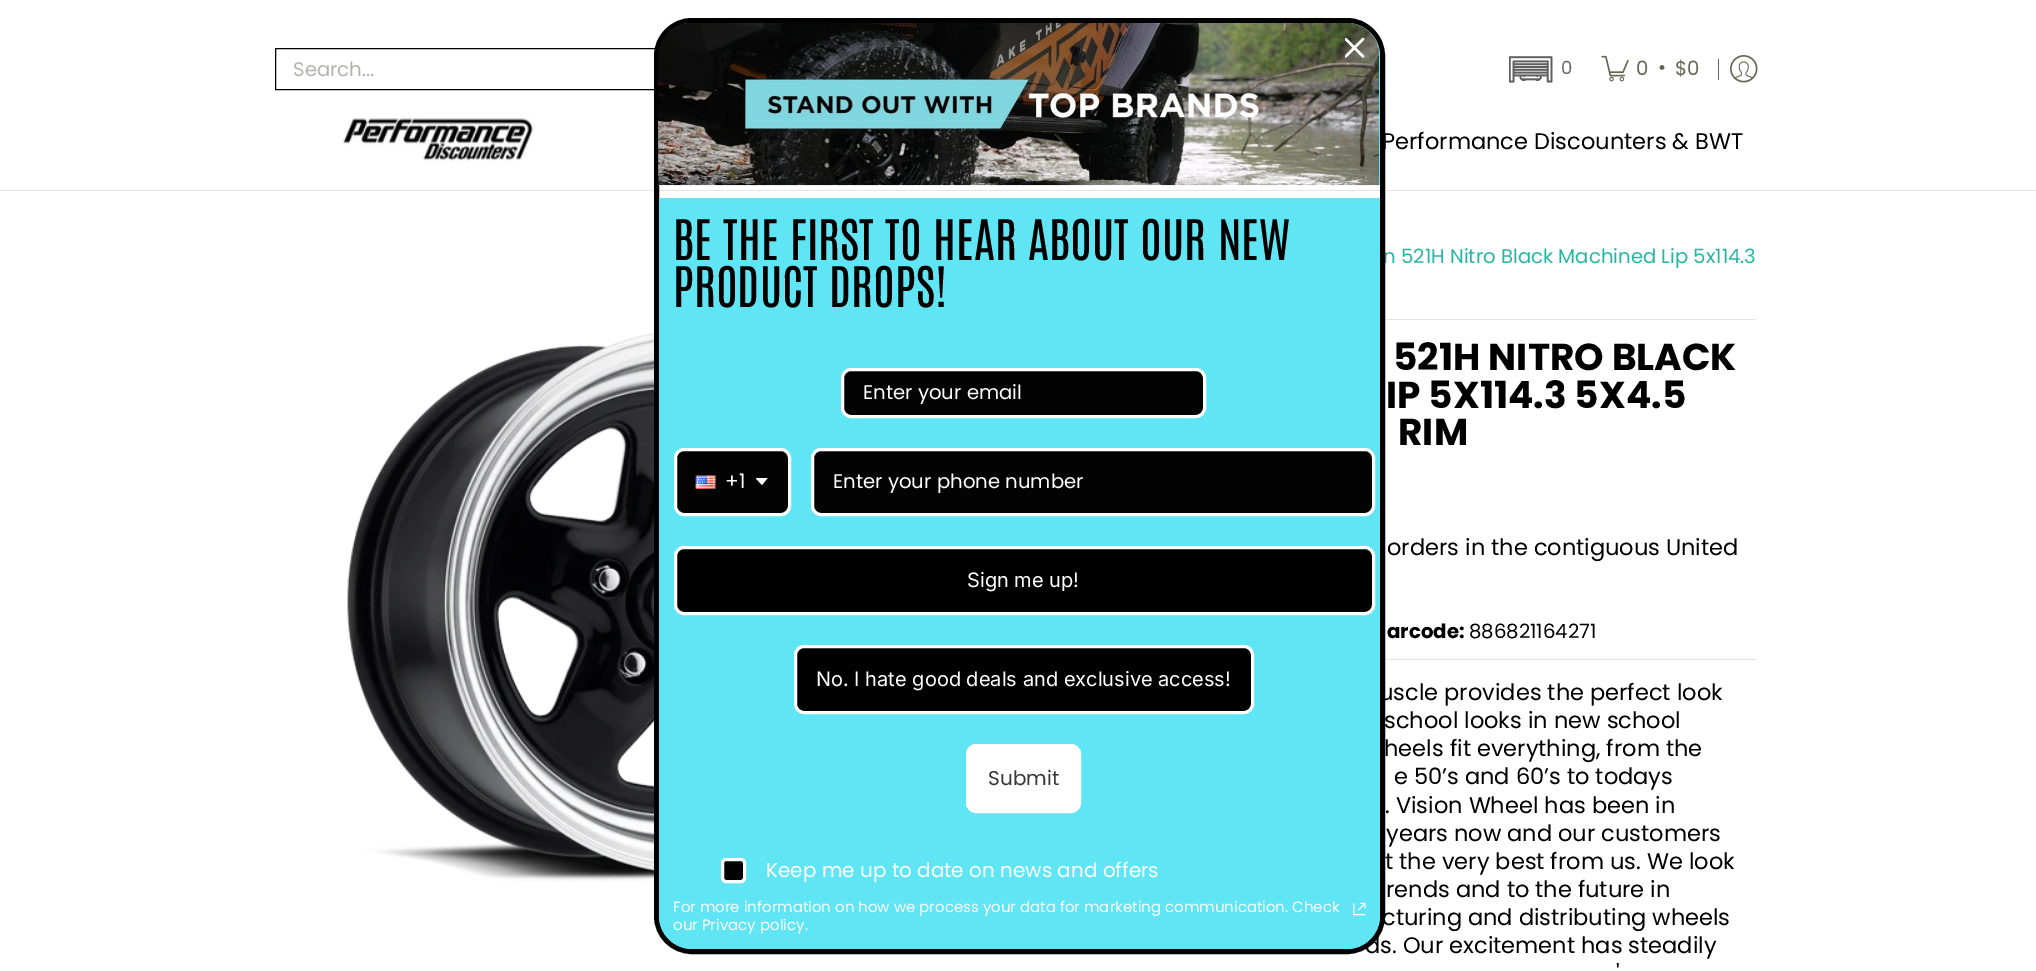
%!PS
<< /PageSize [2036 971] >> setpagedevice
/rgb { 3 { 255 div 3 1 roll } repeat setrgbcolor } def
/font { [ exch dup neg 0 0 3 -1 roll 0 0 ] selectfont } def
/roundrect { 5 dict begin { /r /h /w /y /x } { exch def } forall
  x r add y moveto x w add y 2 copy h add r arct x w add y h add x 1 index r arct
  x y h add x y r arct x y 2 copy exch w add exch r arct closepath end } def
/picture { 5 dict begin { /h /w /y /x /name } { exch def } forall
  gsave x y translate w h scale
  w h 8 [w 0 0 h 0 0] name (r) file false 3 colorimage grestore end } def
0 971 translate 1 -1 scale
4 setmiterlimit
255 255 255 rgb
0 0 2036 971 rectfill
0 0 0 rgb
275.5 48.5 749 41 rectstroke
(img/1.rgb) 1509 56 44 27 picture
(img/2.rgb) 1601 55 28 27 picture
102 102 85 rgb
1718 59 1 21 rectfill
(img/3.rgb) 1730 55 28 28 picture
228 228 228 rgb
0 190 2036 1 rectfill
(img/4.rgb) 343 117 192 44 picture
(img/9.rgb) 347 332 307 550 picture
1385 319 371 1 rectfill
1385 659 371 1 rectfill
/Poppins-Regular 19.7 font
179 179 171 rgb
293 76 moveto (Search...) show
/Poppins-Regular 18 font
102 102 102 rgb
1561 74 moveto (0) show
/Poppins-Regular 19.7 font
102 102 85 rgb
[
  [(0) 1636 75]
  [(•) 1658 74]
  [($0) 1675 75]
] { aload pop moveto show } forall
/Poppins-Regular 22.5 font
0 0 0 rgb
1382 149 moveto (Performance Discounters & BWT) show
/Poppins-Regular 19.7 font
39 182 163 rgb
1383 263 moveto (n 521H Nitro Black Machined Lip 5x114.3) show
/Poppins-Bold 37.5 font
0 0 0 rgb
[
  [(521H NITRO BLACK) 1393 370]
  [(IP 5X114.3 5X4.5) 1386 408]
  [(RIM) 1398 445]
] { aload pop moveto show } forall
/Poppins-Regular 22.5 font
1387 555 moveto (orders in the contiguous United) show
/Poppins-Bold 19.7 font
1387 638 moveto (arcode:) show
/Poppins-Regular 19.7 font
1469 638 moveto (886821164271) show
/Poppins-Regular 22.5 font
[
  [(uscle provides the perfect look) 1379 700]
  [(school looks in new school) 1384 728]
  [(heels fit everything, from the) 1384 756]
  [(e 50’s and 60’s to todays) 1394 784]
  [(. Vision Wheel has been in) 1385 813]
  [(years now and our customers) 1386 841]
  [(t the very best from us. We look) 1385 869]
  [(rends and to the future in) 1386 897]
  [(cturing and distributing wheels) 1382 925]
  [(ds. Our excitement has steadily) 1365 953]
] { aload pop moveto show } forall
1 1 1 rgb
5 setlinewidth
656.5 20.5 726 931 35.5 roundrect stroke
95 229 243 rgb
692 23 moveto 1347 23 lineto 1365 23 1380 38 1380 56 curveto 1380 185 lineto 659 185 lineto 659 56 lineto 659 38 674 23 692 23 curveto closepath fill
(img/6.rgb) 658 23 721 163 picture
(img/5.rgb) 1345 38 20 20 picture
659 198 moveto 1380 198 lineto 1380 916 lineto 1380 934 1365 949 1347 949 curveto 692 949 lineto 674 949 659 934 659 916 curveto closepath fill
3 3 3 rgb
722.5 859.5 22 22 3.5 roundrect gsave fill grestore
255 255 255 rgb
3 setlinewidth
stroke
/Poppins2-Regular 20 font
766 877 moveto (Keep me up to date on news and offers) show
3 3 3 rgb
812.5 449.5 561 65 8.5 roundrect gsave fill grestore
255 255 255 rgb
stroke
/Poppins2-Regular 19.7 font
833 488 moveto (Enter your phone number) show
3 3 3 rgb
675.5 449.5 114 65 8.5 roundrect gsave fill grestore
255 255 255 rgb
stroke
gsave
756 478 13 7 rectclip
755.5 478 moveto 768 477.5 lineto 762 485 lineto closepath eofill
grestore
/Poppins2-Regular 20 font
725 488 moveto (+1) show
(img/7.rgb) 695 475 21 14 picture
3 3 3 rgb
842.5 369.5 362 47 8.5 roundrect gsave fill grestore
255 255 255 rgb
stroke
/Poppins2-Regular 19.7 font
863 399 moveto (Enter your email) show
(img/8.rgb) 1353 902 13 14 picture
0 0 0 rgb
675.5 547.5 698 66 8.5 roundrect gsave fill grestore
255 255 255 rgb
stroke
/Inter-Regular 20 font
967 587 moveto (Sign me up!) show
/Poppins2-Regular 15 font
673 930 moveto (our Privacy policy.) show
673 912 moveto (For more information on how we process your data for marketing communication. Check) show
967.5 745.5 112 66 8.5 roundrect gsave fill grestore
stroke
/Poppins2-Regular 20 font
56 56 56 rgb
988 785 moveto (Submit) show
0 0 0 rgb
795.5 646.5 457 66 8.5 roundrect gsave fill grestore
255 255 255 rgb
stroke
/Inter-Regular 20 font
816 686 moveto (No. I hate good deals and exclusive access!) show
/Antonio-Regular 47.5 font
0 0 0 rgb
673 307 moveto (PRODUCT DROPS!) show
673 260 moveto (BE THE FIRST TO HEAR ABOUT OUR NEW) show
/Poppins-Regular 22.5 font
1616 981 moveto (') show
showpage
